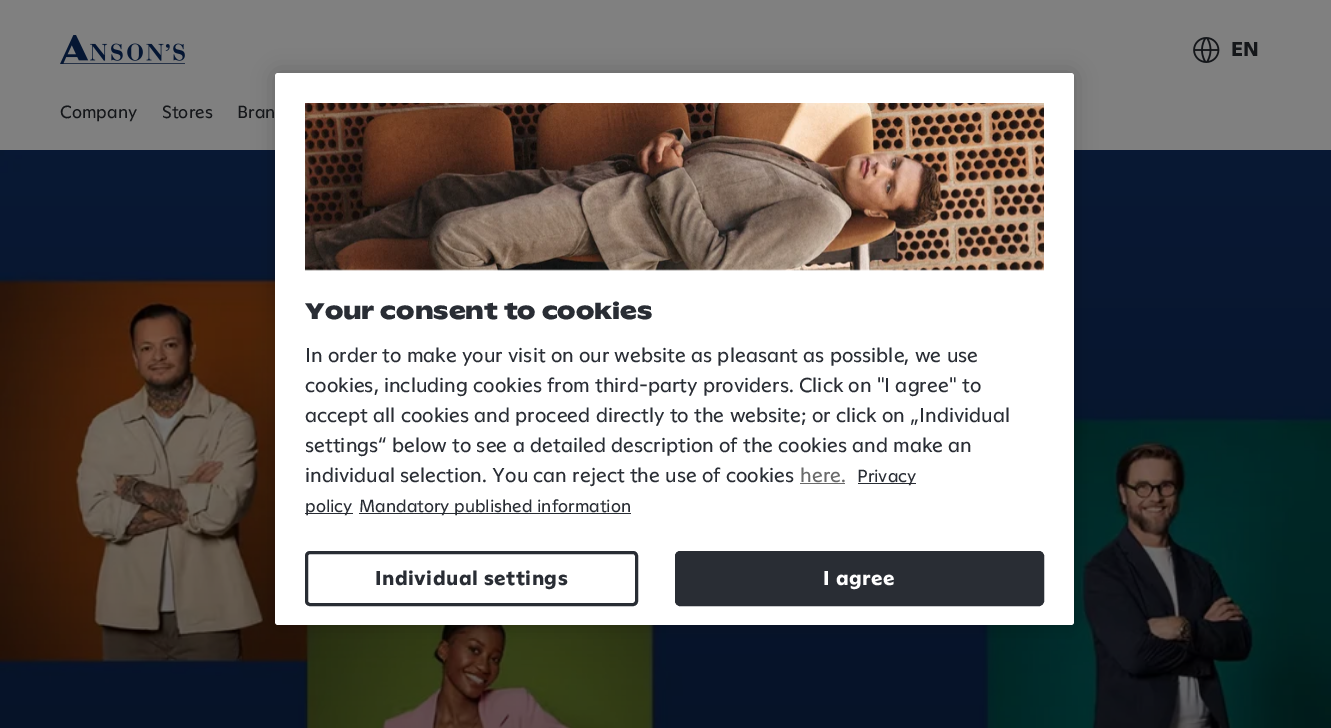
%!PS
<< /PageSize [1331 728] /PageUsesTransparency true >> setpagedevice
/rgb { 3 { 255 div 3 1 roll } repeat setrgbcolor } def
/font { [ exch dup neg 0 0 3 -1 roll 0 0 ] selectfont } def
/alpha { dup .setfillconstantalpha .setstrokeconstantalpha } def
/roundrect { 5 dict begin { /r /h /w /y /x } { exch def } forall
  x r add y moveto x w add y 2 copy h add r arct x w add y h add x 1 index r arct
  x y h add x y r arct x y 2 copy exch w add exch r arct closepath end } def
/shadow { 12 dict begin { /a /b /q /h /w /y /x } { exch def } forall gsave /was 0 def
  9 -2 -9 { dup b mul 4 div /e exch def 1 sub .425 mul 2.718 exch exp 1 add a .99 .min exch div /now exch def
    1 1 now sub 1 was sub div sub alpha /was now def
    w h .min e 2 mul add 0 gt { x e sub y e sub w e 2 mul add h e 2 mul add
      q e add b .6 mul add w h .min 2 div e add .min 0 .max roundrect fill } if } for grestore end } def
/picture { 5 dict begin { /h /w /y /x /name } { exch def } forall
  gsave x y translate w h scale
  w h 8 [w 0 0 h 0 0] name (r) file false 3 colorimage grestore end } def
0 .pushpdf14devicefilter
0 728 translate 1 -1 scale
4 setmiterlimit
128 128 128 rgb
0 0 1331 728 rectfill
(img/1.rgb) 60 35 125 29 picture
(img/2.rgb) 1193 37 27 26 picture
(img/3.rgb) 0 150 1331 578 picture
0 0 0 rgb
275 73 799 552 3 11 0.2 shadow
255 255 255 rgb
275 73 799 552 3 roundrect fill
(img/4.rgb) 305 103 739 168 picture
[
  [800 483 45 1 105 105 105]
  [858 483 58 1 41 45 52]
  [305 513 48 1 41 45 52]
  [359 513 272 1 41 45 52]
] { aload pop rgb rectfill } forall
3 setlinewidth
306.5 552.5 330 52 3.5 roundrect stroke
675.5 551.5 368 54 4.5 roundrect gsave fill grestore
1 setlinewidth
stroke
/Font-Bold 20 font
21 23 26 rgb
1231 56 moveto (EN) show
/Font-Regular 17.5 font
[
  [(Company) 60 118]
  [(Stores) 162 118]
  [(Bran) 237 118]
] { aload pop moveto show } forall
/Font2-Bold 22.5 font
41 45 52 rgb
305 319 moveto (Your consent to cookies) show
/Font-Regular 20 font
[
  [(In order to make your visit on our website as pleasant as possible, we use) 305 362]
  [(cookies, including cookies from third-party providers. Click on "I agree" to) 305 392]
  [(accept all cookies and proceed directly to the website; or click on „Individual) 305 422]
  [(settings“ below to see a detailed description of the cookies and make an) 305 452]
  [(individual selection. You can reject the use of cookies) 305 482]
] { aload pop moveto show } forall
105 105 105 rgb
800 482 moveto (here.) show
/Font-Regular 17.5 font
41 45 52 rgb
[
  [(Privacy) 857 482]
  [(policy) 305 512]
  [(Mandatory published information) 359 512]
] { aload pop moveto show } forall
/Font-Bold 20 font
375 585 moveto 0.5 0 (Individual settings) ashow
255 255 255 rgb
823 585 moveto 0.5 0 (I agree) ashow
.poppdf14devicefilter showpage
